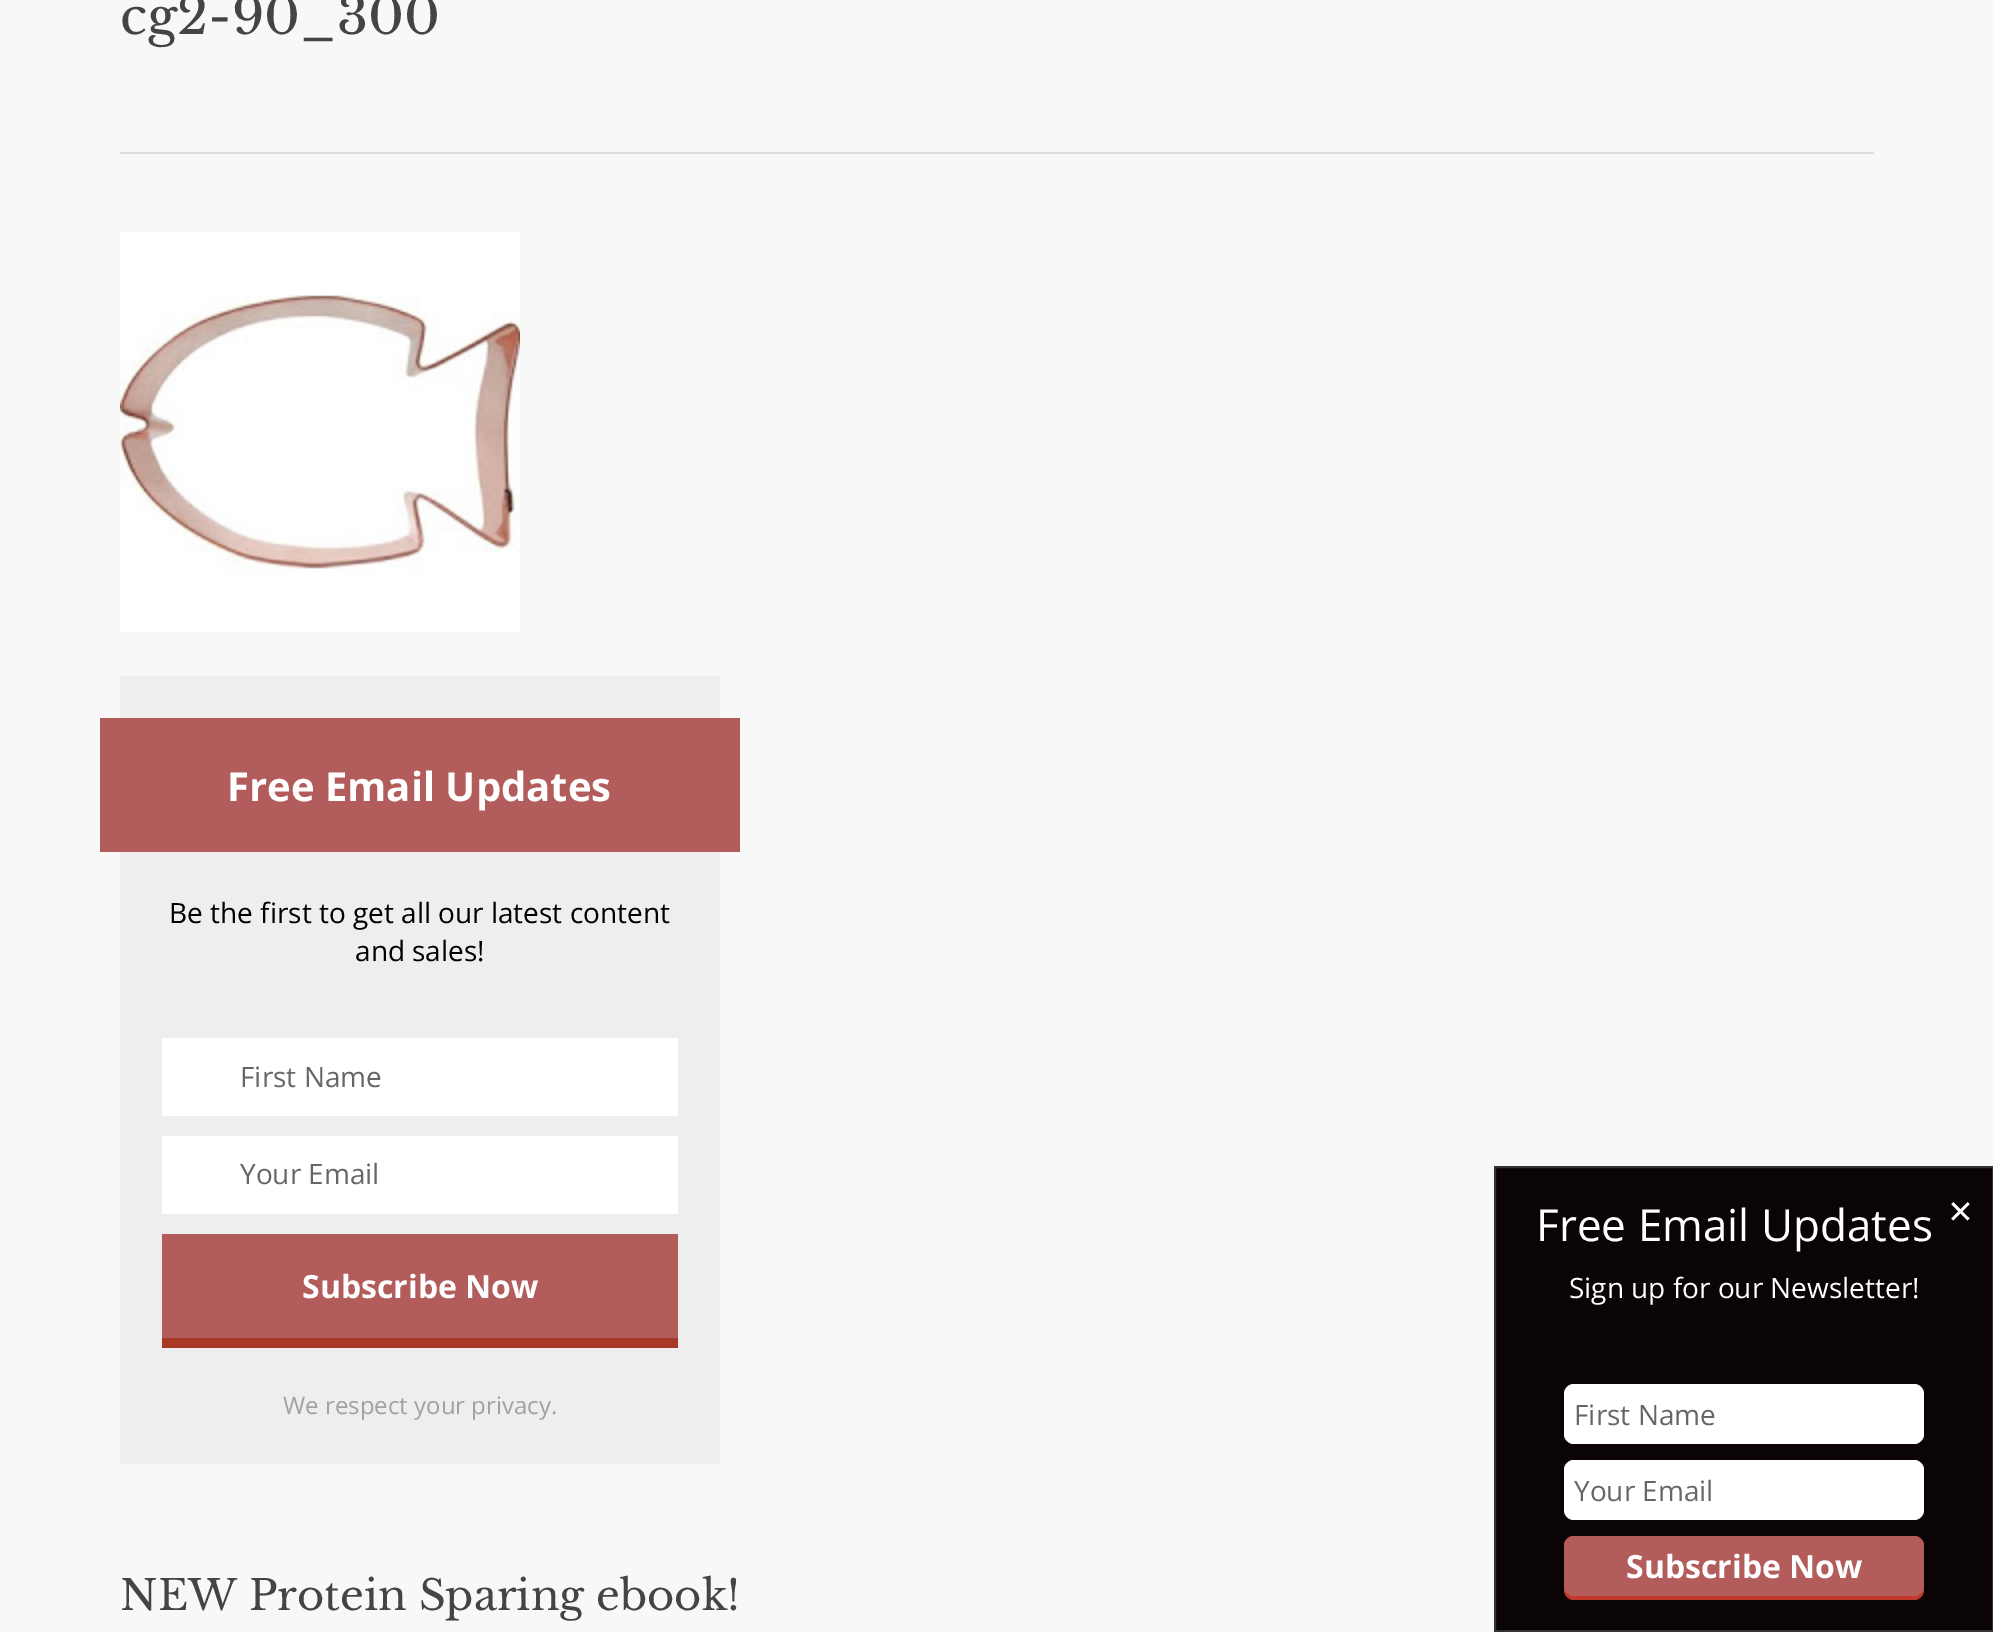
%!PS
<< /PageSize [1993 1632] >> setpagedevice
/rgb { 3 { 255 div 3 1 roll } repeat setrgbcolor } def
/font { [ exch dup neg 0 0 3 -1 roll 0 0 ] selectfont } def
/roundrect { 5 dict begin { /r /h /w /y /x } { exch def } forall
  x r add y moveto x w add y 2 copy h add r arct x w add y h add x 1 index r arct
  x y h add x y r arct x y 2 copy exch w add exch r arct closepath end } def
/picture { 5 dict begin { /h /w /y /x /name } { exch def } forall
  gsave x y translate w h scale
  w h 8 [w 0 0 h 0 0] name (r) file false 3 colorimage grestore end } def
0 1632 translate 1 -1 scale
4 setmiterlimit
248 248 248 rgb
0 0 1993 1632 rectfill
221 221 221 rgb
120 152 1754 2 rectfill
(img/1.rgb) 120 232 400 400 picture
[
  [120 676 600 788 238 238 238]
  [100 718 640 134 178 92 91]
  [162 1038 516 78 255 255 255]
  [162 1136 516 78 255 255 255]
  [162 1338 516 10 168 57 38]
  [162 1234 516 104 178 92 91]
] { aload pop rgb rectfill } forall
10 4 4 rgb
1495 1167 moveto 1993 1167 lineto 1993 1631 lineto 1495 1631 lineto closepath gsave fill grestore
51 51 51 rgb
2 setlinewidth
stroke
255 255 255 rgb
1564 1384 360 60 10 roundrect fill
1564 1460 360 60 10 roundrect fill
192 57 43 rgb
1564 1536 360 64 10 roundrect fill
178 92 91 rgb
1564 1536 360 60 10 roundrect fill
/LibreBaskerville-Regular 50.5 font
68 68 68 rgb
120 34 moveto (cg2-90_300) show
/OpenSans-Bold 40 font
255 255 255 rgb
227 801 moveto (Free Email Updates) show
/OpenSans-Regular 28 font
0 0 0 rgb
169 923 moveto (Be the first to get all our latest content) show
355 961 moveto (and sales!) show
102 102 102 rgb
240 1087 moveto (First Name) show
240 1184 moveto (Your Email) show
/OpenSans-Bold 32 font
255 255 255 rgb
302 1298 moveto (Subscribe Now) show
/OpenSans-Regular 24 font
161 161 161 rgb
283 1414 moveto (We respect your privacy.) show
/LibreBaskerville-Regular 41.6 font
68 68 68 rgb
120 1610 moveto (NEW Protein Sparing ebook!) show
/OpenSans-Regular 44 font
255 255 255 rgb
1536 1241 moveto (Free Email Updates) show
/DejaVuSans-Regular 32 font
1947 1223 moveto (✕) show
/OpenSans-Regular 28 font
1569 1298 moveto (Sign up for our Newsletter!) show
102 102 102 rgb
1574 1425 moveto (First Name) show
1574 1501 moveto (Your Email) show
/OpenSans-Bold 32 font
255 255 255 rgb
1626 1578 moveto (Subscribe Now) show
showpage
